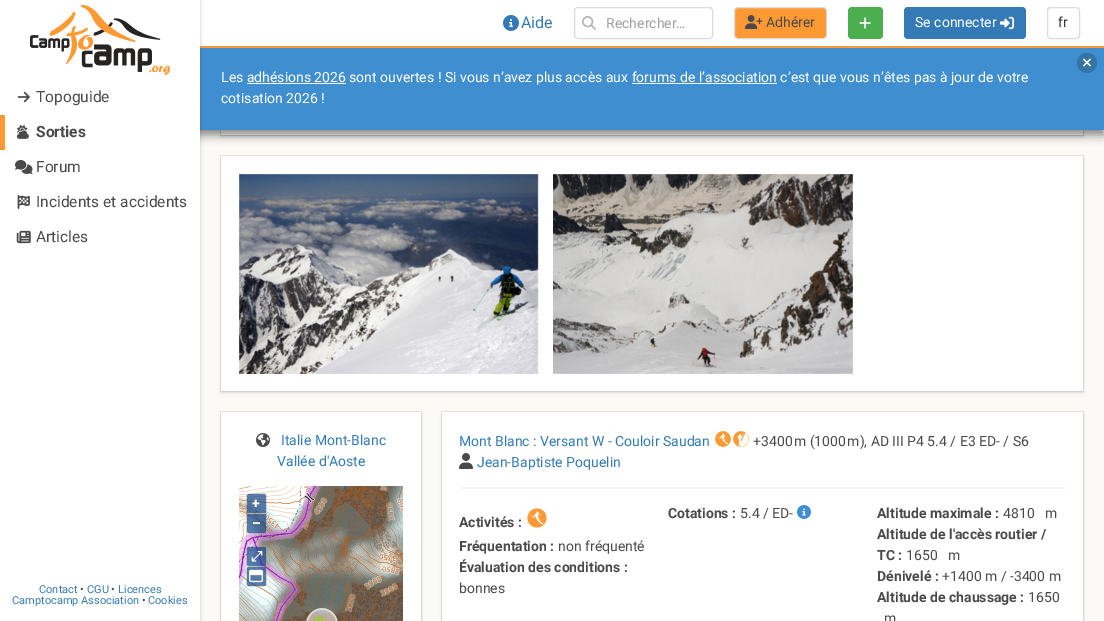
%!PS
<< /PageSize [1104 621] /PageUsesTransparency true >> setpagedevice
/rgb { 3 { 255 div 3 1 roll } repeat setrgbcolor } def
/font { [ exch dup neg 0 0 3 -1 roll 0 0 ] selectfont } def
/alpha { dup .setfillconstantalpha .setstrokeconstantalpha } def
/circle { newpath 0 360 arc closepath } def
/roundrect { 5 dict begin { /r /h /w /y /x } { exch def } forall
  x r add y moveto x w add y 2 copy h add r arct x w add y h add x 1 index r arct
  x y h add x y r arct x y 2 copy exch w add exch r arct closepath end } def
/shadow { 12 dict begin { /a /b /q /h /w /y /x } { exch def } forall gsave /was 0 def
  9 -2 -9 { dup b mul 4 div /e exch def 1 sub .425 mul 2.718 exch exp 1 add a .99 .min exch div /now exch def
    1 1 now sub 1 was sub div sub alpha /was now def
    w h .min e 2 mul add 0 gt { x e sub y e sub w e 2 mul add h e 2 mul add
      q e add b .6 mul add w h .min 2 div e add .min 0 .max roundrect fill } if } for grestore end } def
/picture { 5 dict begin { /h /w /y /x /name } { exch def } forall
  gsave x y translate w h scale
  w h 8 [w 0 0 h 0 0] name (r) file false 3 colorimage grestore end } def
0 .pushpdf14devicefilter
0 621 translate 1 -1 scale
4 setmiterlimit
251 250 246 rgb
0 0 1104 621 rectfill
227 226 222 rgb
220.5 66.5 863 69 rectstroke
10 10 10 rgb
221 69 862 68 0 1.5 0.1 shadow
255 255 255 rgb
221 130 862 5 rectfill
10 10 10 rgb
0 51 1104 84 0 5 0.5 shadow
255 153 51 rgb
200 46 904 2 rectfill
255 255 255 rgb
200 0 904 46 rectfill
(img/1.rgb) 503 15 16 16 picture
219 219 219 rgb
574.5 7.5 138 31 3.5 roundrect stroke
(img/2.rgb) 582 16 14 14 picture
255 153 51 rgb
734.5 7.5 92 31 3.5 roundrect gsave fill grestore
219 219 219 rgb
stroke
(img/3.rgb) 745 15 18 14 picture
75 175 80 rgb
848 7 35 32 4 roundrect fill
(img/4.rgb) 859 17 12 12 picture
51 122 183 rgb
904 7 122 32 4 roundrect fill
(img/5.rgb) 1000 16 14 14 picture
219 219 219 rgb
1047.5 7.5 32 31 3.5 roundrect stroke
62 142 208 rgb
200 48 904 82 rectfill
0 0 0 rgb
0 1 200 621 0 2 0.2 shadow
255 255 255 rgb
0 0 200 621 rectfill
(img/6.rgb) 30 5 140 70 picture
(img/7.rgb) 17 91 13 12 picture
255 153 51 rgb
0 115 5 35 rectfill
(img/8.rgb) 17 125 11 8 picture
(img/9.rgb) 18 129 10 6 picture
(img/10.rgb) 16 130 13 9 picture
(img/11.rgb) 15 160 18 14 picture
(img/12.rgb) 17 195 13 14 picture
(img/13.rgb) 16 230 15 14 picture
52 116 168 rgb
1087 63 10 circle fill
255 255 255 rgb
1084 58.5 moveto 1091 65.5 lineto 1090 66.5 lineto 1083 59.5 lineto closepath fill
1090 58.5 moveto 1091 59.5 lineto 1084 66.5 lineto 1083 65.5 lineto closepath fill
247 83 99 1 rectfill
632 83 145 1 rectfill
227 226 222 rgb
220.5 155.5 863 236 rectstroke
10 10 10 rgb
221 158 862 235 0 1.5 0.1 shadow
255 255 255 rgb
221 156 862 235 rectfill
(img/14.rgb) 239 174 300 200 picture
(img/15.rgb) 553 174 300 200 picture
227 226 222 rgb
220.5 411.5 201 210 rectstroke
10 10 10 rgb
221 414 200 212 0 1.5 0.1 shadow
255 255 255 rgb
221 412 200 209 rectfill
(img/16.rgb) 256 433 14 14 picture
(img/17.rgb) 239 486 164 135 picture
0.25 alpha
128 128 128 rgb
246 493 21 41 4 roundrect fill
0.6 alpha
0 60 136 rgb
249 494 moveto 264 494 lineto 265 494 266 495 266 496 curveto 266 513 lineto 247 513 lineto 247 496 lineto 247 495 248 494 249 494 curveto closepath fill
247 514 moveto 266 514 lineto 266 531 lineto 266 532 265 533 264 533 curveto 249 533 lineto 248 533 247 532 247 531 curveto closepath fill
0.25 alpha
128 128 128 rgb
246 546 21 21 4 roundrect fill
0.6 alpha
0 60 136 rgb
247 547 19 19 2 roundrect fill
0.25 alpha
128 128 128 rgb
246 566 21 21 4 roundrect fill
0.6 alpha
0 60 136 rgb
247 567 19 19 2 roundrect fill
1 alpha
(img/18.rgb) 249 569 14 14 picture
227 226 222 rgb
441.5 411.5 642 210 rectstroke
10 10 10 rgb
442 414 641 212 0 1.5 0.1 shadow
255 255 255 rgb
442 412 641 209 rectfill
(img/19.rgb) 715 431 16 16 picture
(img/20.rgb) 733 431 16 16 picture
(img/21.rgb) 459 453 14 16 picture
245 245 245 rgb
459 487 607 2 rectfill
(img/22.rgb) 527 508 20 20 picture
(img/23.rgb) 797 505 14 14 picture
/Roboto-Regular 16 font
51 122 183 rgb
521 28 moveto (Aide) show
/Roboto-Regular 14 font
160 160 160 rgb
606 28 moveto (Rechercher…) show
74 74 74 rgb
766 27 moveto (Adhérer) show
255 255 255 rgb
915 27 moveto (Se connecter) show
54 54 54 rgb
1058 27 moveto (fr) show
/Roboto-Regular 15.5 font
74 74 74 rgb
36 102 moveto (Topoguide) show
/Roboto-Bold 15.5 font
36 137 moveto (Sorties) show
/Roboto-Regular 15.5 font
[
  [(Forum) 36 172]
  [(Incidents et accidents) 36 207]
  [(Articles) 36 242]
] { aload pop moveto show } forall
/Roboto-Regular 11 font
51 122 183 rgb
39 593 moveto (Contact) show
74 74 74 rgb
80 593 moveto (•) show
51 122 183 rgb
87 593 moveto (CGU) show
74 74 74 rgb
111 593 moveto (•) show
51 122 183 rgb
118 593 moveto (Licences) show
12 604 moveto (Camptocamp Association) show
74 74 74 rgb
142 604 moveto (•) show
51 122 183 rgb
148 604 moveto (Cookies) show
/Roboto-Regular 14 font
255 255 255 rgb
221 82 moveto (Les adhésions 2026 sont ouvertes ! Si vous n’avez plus accès aux forums de l’association c’est que vous n’êtes pas à jour de votre) show
221 103 moveto (cotisation 2026 !) show
51 122 183 rgb
281 445 moveto (Italie Mont-Blanc) show
277 466 moveto (Vallée d'Aoste) show
/Roboto-Bold 14 font
255 255 255 rgb
252 508 moveto (+) show
252 528 moveto (–) show
/FreeSerif-Bold 14 font
251 561 moveto (⤢) show
/Roboto-Regular 14 font
51 122 183 rgb
459 446 moveto (Mont Blanc : Versant W - Couloir Saudan) show
74 74 74 rgb
753 446 moveto (+3400 m \(1000 m\), AD III P4 5.4 / E3 ED- / S6) show
51 122 183 rgb
477 467 moveto (Jean-Baptiste Poquelin) show
/Roboto-Bold 14 font
74 74 74 rgb
459 527 moveto (Activités :) show
459 551 moveto (Fréquentation :) show
/Roboto-Regular 14 font
558 551 moveto (non fréquenté) show
/Roboto-Bold 14 font
459 572 moveto (Évaluation des conditions :) show
/Roboto-Regular 14 font
459 593 moveto (bonnes) show
/Roboto-Bold 14 font
668 518 moveto (Cotations :) show
/Roboto-Regular 14 font
740 518 moveto (5.4 / ED-) show
/Roboto-Bold 14 font
877 518 moveto (Altitude maximale :) show
/Roboto-Regular 14 font
1003 518 moveto (4810) show
1045 518 moveto (m) show
/Roboto-Bold 14 font
877 539 moveto (Altitude de l'accès routier /) show
877 560 moveto (TC :) show
/Roboto-Regular 14 font
906 560 moveto (1650) show
948 560 moveto (m) show
/Roboto-Bold 14 font
877 581 moveto (Dénivelé :) show
/Roboto-Regular 14 font
942 581 moveto (+1400 m / -3400 m) show
/Roboto-Bold 14 font
877 602 moveto (Altitude de chaussage :) show
/Roboto-Regular 14 font
1028 602 moveto (1650) show
884 623 moveto (m) show
.poppdf14devicefilter showpage
